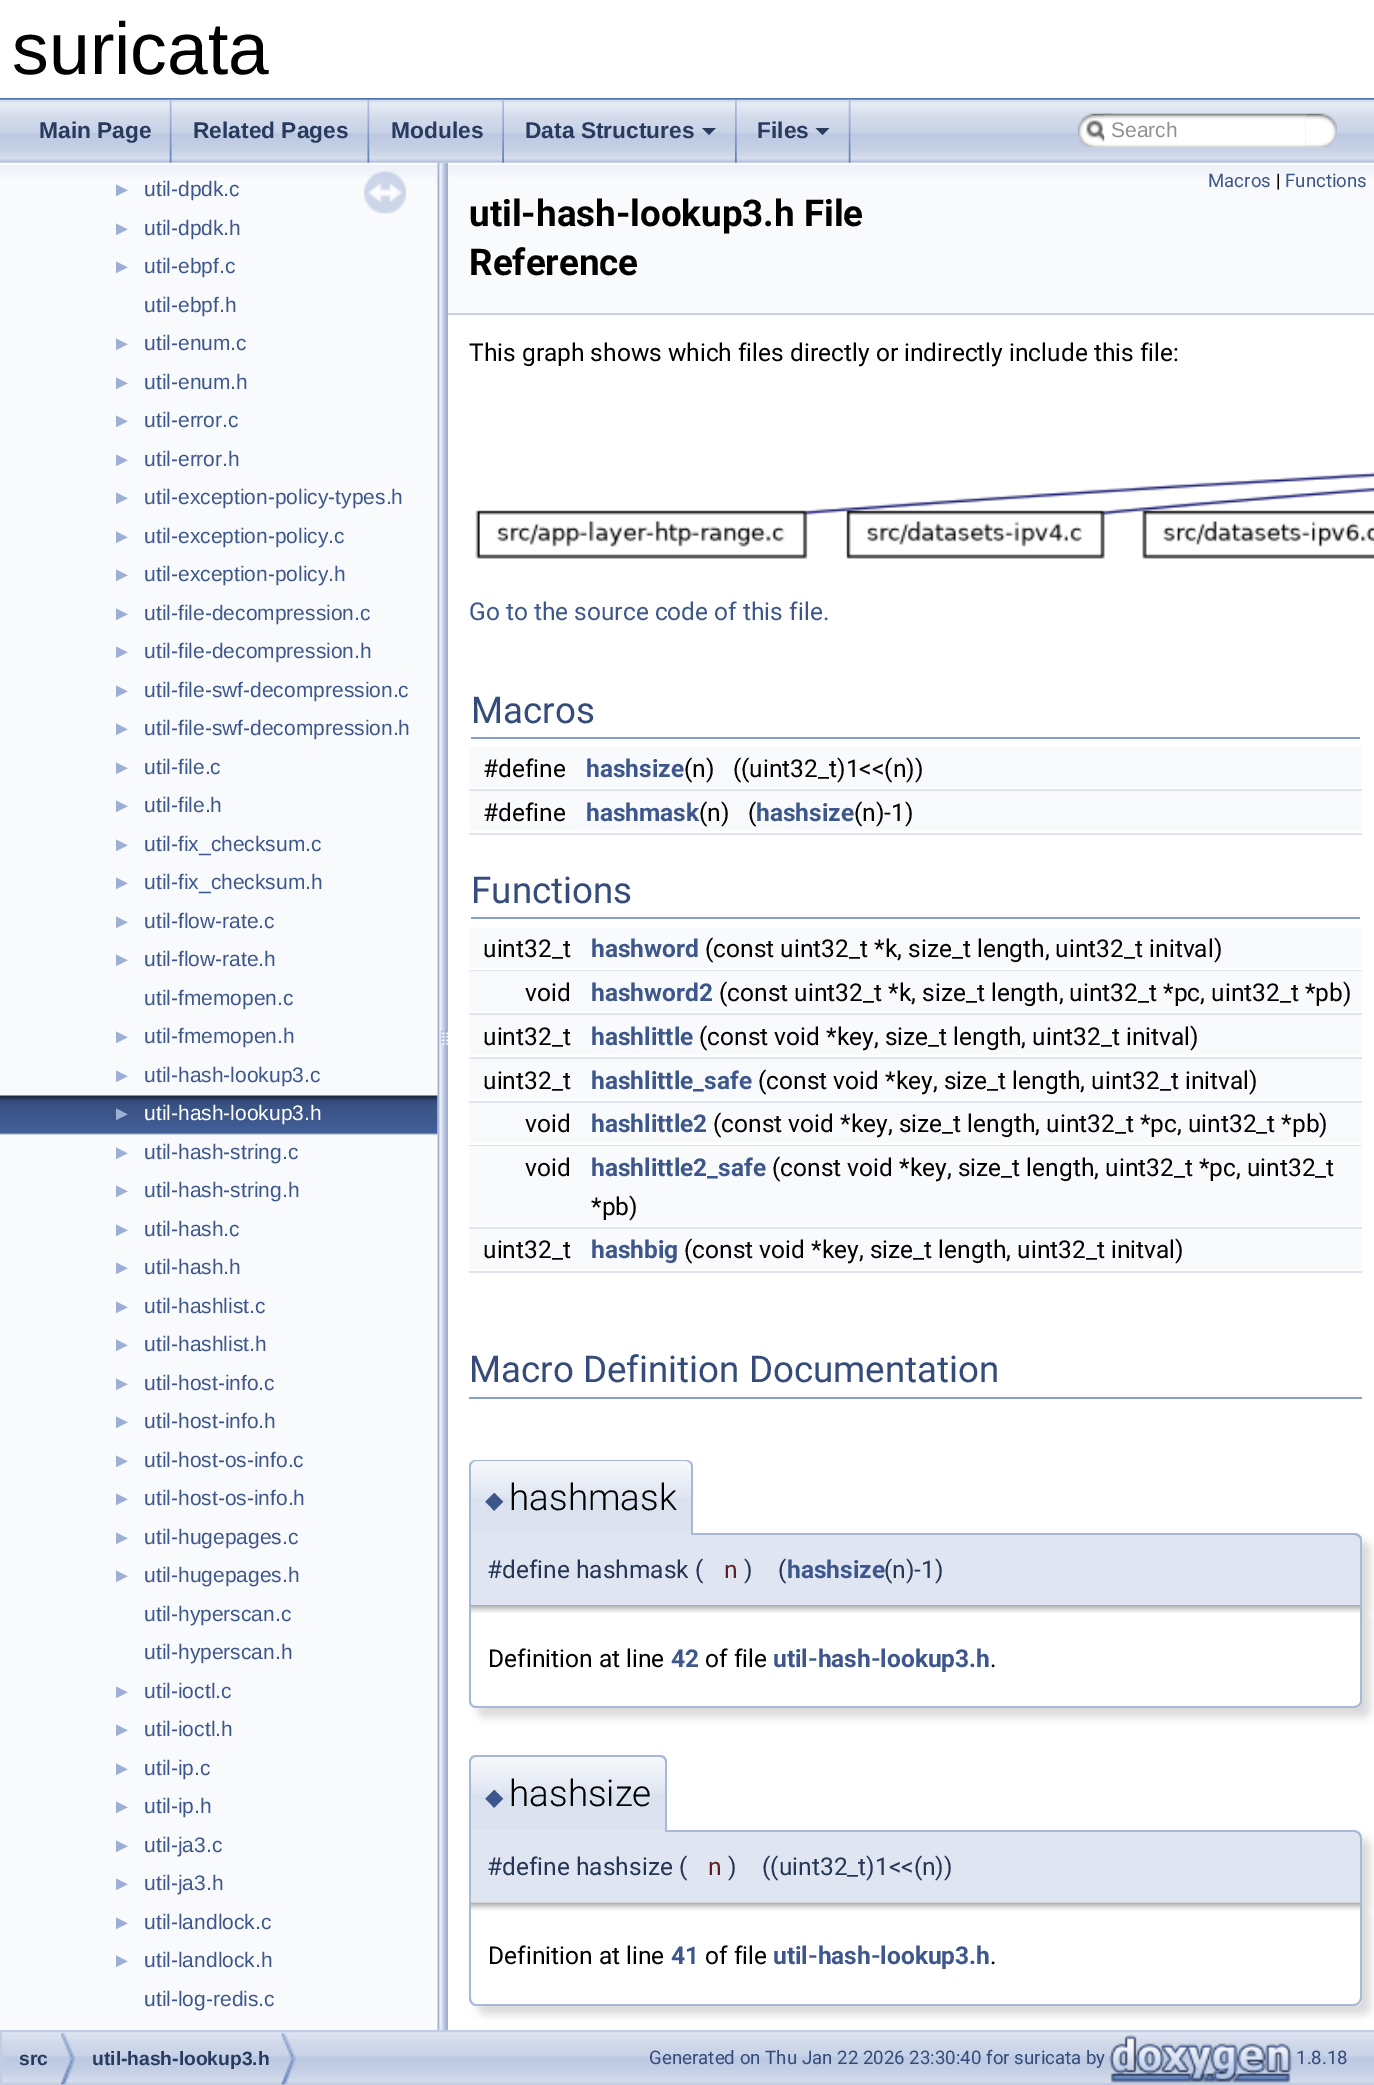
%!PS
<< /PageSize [1374 2085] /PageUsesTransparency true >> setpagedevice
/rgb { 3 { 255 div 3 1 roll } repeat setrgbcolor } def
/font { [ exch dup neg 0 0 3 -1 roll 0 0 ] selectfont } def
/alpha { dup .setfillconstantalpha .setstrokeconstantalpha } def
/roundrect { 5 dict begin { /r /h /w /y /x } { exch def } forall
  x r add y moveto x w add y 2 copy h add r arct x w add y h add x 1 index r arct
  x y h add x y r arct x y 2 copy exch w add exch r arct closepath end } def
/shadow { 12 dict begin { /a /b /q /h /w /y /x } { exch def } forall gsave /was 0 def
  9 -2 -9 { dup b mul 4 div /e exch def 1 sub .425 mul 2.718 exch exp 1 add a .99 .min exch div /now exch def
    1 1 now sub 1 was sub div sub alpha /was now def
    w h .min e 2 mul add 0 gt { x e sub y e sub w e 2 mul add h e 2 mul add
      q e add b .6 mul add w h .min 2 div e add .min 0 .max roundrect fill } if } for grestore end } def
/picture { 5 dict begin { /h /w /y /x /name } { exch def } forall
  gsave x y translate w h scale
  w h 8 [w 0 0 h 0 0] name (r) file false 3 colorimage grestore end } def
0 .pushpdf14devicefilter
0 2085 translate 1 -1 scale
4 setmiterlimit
255 255 255 rgb
0 0 1374 2085 rectfill
83 115 180 rgb
0 98 1374 2 rectfill
249 250 252 rgb
0 163 438 1867 rectfill
(img/10.rgb) 0 163 438 14 picture
(img/12.rgb) 0 1095 438 40 picture
(img/13.rgb) 437 162 11 1868 picture
(img/1.rgb) 0 99 1374 64 picture
(img/2.rgb) 169 99 3 64 picture
(img/3.rgb) 367 100 3 63 picture
(img/4.rgb) 502 99 2 64 picture
(img/5.rgb) 735 99 2 64 picture
40 58 93 rgb
702 128 moveto 716 128 lineto 709 135 lineto closepath fill
(img/2.rgb) 848 99 3 64 picture
815.5 128 moveto 829.5 128 lineto 822.5 135 lineto closepath fill
(img/6.rgb) 1078 113 35 34 picture
(img/7.rgb) 1086 120 19 22 picture
(img/8.rgb) 1104 113 202 34 picture
(img/9.rgb) 1305 113 32 34 picture
(img/11.rgb) 364 171 42 43 picture
249 250 252 rgb
448 177 926 136 rectfill
(img/14.rgb) 448 163 926 14 picture
196 207 229 rgb
448 313 926 2 rectfill
(img/15.rgb) 475 472 899 87 picture
[
  [471 737 889 2 135 158 203]
  [469 747 893 41 249 250 252]
  [469 789 893 2 222 228 240]
  [469 791 893 40 249 250 252]
  [469 833 893 2 222 228 240]
  [471 917 889 2 135 158 203]
  [469 928 893 40 249 250 252]
  [469 970 893 1 222 228 240]
  [469 971 893 41 249 250 252]
  [469 1013 893 2 222 228 240]
  [469 1015 893 40 249 250 252]
  [469 1057 893 2 222 228 240]
  [469 1059 893 40 249 250 252]
  [469 1101 893 2 222 228 240]
  [469 1103 893 40 249 250 252]
  [469 1145 893 1 222 228 240]
  [469 1146 893 79 249 250 252]
  [469 1227 893 2 222 228 240]
  [469 1229 893 40 249 250 252]
  [469 1271 893 2 222 228 240]
  [469 1397 893 2 135 158 203]
] { aload pop rgb rectfill } forall
0 0 0 rgb
478 1542 892 72 7 4.5 0.15 shadow
223 229 241 rgb
469 1533 moveto 1355 1533 lineto 1359 1533 1362 1536 1362 1540 curveto 1362 1605 lineto 469 1605 lineto closepath fill
168 184 217 rgb
469 1533 moveto 1354 1533 lineto 1358 1533 1362 1536 1362 1540 curveto 1362 1605 lineto 469 1605 lineto closepath 471 1535 moveto 1354 1535 lineto 1357 1535 1360 1537 1360 1540 curveto 1360 1605 lineto 471 1605 lineto closepath eofill
226 232 242 rgb
476 1460 moveto 686 1460 lineto 690 1460 693 1463 693 1467 curveto 693 1535 lineto 469 1535 lineto 469 1467 lineto 469 1463 472 1460 476 1460 curveto closepath fill
(img/16.rgb) 469 1461 224 73 picture
168 184 217 rgb
476 1460 moveto 686 1460 lineto 690 1460 693 1463 693 1466 curveto 693 1535 lineto 469 1535 lineto 469 1466 lineto 469 1463 472 1460 476 1460 curveto closepath 476 1461 moveto 686 1461 lineto 689 1461 691 1464 691 1466 curveto 691 1535 lineto 471 1535 lineto 471 1466 lineto 471 1464 473 1461 476 1461 curveto closepath eofill
0 0 0 rgb
478 1614 892 103 7 4.5 0.15 shadow
255 255 255 rgb
469 1605 moveto 1362 1605 lineto 1362 1701 lineto 1362 1705 1359 1708 1355 1708 curveto 476 1708 lineto 472 1708 469 1705 469 1701 curveto closepath fill
(img/17.rgb) 471 1605 889 8 picture
168 184 217 rgb
469 1605 moveto 1362 1605 lineto 1362 1701 lineto 1362 1705 1358 1708 1354 1708 curveto 476 1708 lineto 472 1708 469 1705 469 1701 curveto closepath 471 1605 moveto 1360 1605 lineto 1360 1701 lineto 1360 1704 1357 1706 1354 1706 curveto 476 1706 lineto 473 1706 471 1704 471 1701 curveto closepath eofill
0 0 0 rgb
478 1839 892 72 7 4.5 0.15 shadow
223 229 241 rgb
469 1831 moveto 1355 1831 lineto 1359 1831 1362 1834 1362 1838 curveto 1362 1902 lineto 469 1902 lineto closepath fill
168 184 217 rgb
469 1830 moveto 1354 1830 lineto 1358 1830 1362 1834 1362 1838 curveto 1362 1902 lineto 469 1902 lineto closepath 471 1832 moveto 1354 1832 lineto 1357 1832 1360 1835 1360 1838 curveto 1360 1902 lineto 471 1902 lineto closepath eofill
226 232 242 rgb
476 1755 moveto 660 1755 lineto 664 1755 667 1758 667 1762 curveto 667 1832 lineto 469 1832 lineto 469 1762 lineto 469 1758 472 1755 476 1755 curveto closepath fill
(img/18.rgb) 469 1757 198 73 picture
168 184 217 rgb
476 1755 moveto 660 1755 lineto 664 1755 667 1758 667 1762 curveto 667 1832 lineto 469 1832 lineto 469 1762 lineto 469 1758 472 1755 476 1755 curveto closepath 476 1757 moveto 660 1757 lineto 663 1757 665 1759 665 1762 curveto 665 1832 lineto 471 1832 lineto 471 1762 lineto 471 1759 473 1757 476 1757 curveto closepath eofill
0 0 0 rgb
478 1911 892 103 7 4.5 0.15 shadow
255 255 255 rgb
469 1902 moveto 1362 1902 lineto 1362 1999 lineto 1362 2003 1359 2006 1355 2006 curveto 476 2006 lineto 472 2006 469 2003 469 1999 curveto closepath fill
(img/19.rgb) 471 1902 889 9 picture
168 184 217 rgb
469 1902 moveto 1362 1902 lineto 1362 1998 lineto 1362 2002 1358 2006 1354 2006 curveto 476 2006 lineto 472 2006 469 2002 469 1998 curveto closepath 471 1902 moveto 1360 1902 lineto 1360 1998 lineto 1360 2001 1357 2004 1354 2004 curveto 476 2004 lineto 473 2004 471 2001 471 1998 curveto closepath eofill
(img/20.rgb) 2 2032 1372 52 picture
194 205 228 rgb
2 setlinewidth
1 2031 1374 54 rectstroke
(img/21.rgb) 61 2033 15 52 picture
(img/22.rgb) 281 2033 15 52 picture
(img/23.rgb) 1109 2035 183 48 picture
/LiberationSans-Regular 73.5 font
0 0 0 rgb
12 74 moveto (suricata) show
/LiberationSans-Bold 22.75 font
40 58 93 rgb
[
  [(Main Page) 39 138]
  [(Related Pages) 193 138]
  [(Modules) 391 138]
  [(Data Structures) 525 138]
  [(Files) 757 138]
] { aload pop moveto show } forall
/LiberationSans-Regular 21 font
144 144 144 rgb
1111 137 moveto (Search) show
/LiberationSans-Regular 20 font
156 175 212 rgb
112 196 moveto (►) show
/LiberationSans-Regular 21 font
61 87 140 rgb
144 196 moveto (util-dpdk.c) show
/LiberationSans-Regular 20 font
156 175 212 rgb
112 235 moveto (►) show
/LiberationSans-Regular 21 font
61 87 140 rgb
144 235 moveto (util-dpdk.h) show
/LiberationSans-Regular 20 font
156 175 212 rgb
112 273 moveto (►) show
/LiberationSans-Regular 21 font
61 87 140 rgb
144 273 moveto (util-ebpf.c) show
144 312 moveto (util-ebpf.h) show
/LiberationSans-Regular 20 font
156 175 212 rgb
112 350 moveto (►) show
/LiberationSans-Regular 21 font
61 87 140 rgb
144 350 moveto (util-enum.c) show
/LiberationSans-Regular 20 font
156 175 212 rgb
112 389 moveto (►) show
/LiberationSans-Regular 21 font
61 87 140 rgb
144 389 moveto (util-enum.h) show
/LiberationSans-Regular 20 font
156 175 212 rgb
112 427 moveto (►) show
/LiberationSans-Regular 21 font
61 87 140 rgb
144 427 moveto (util-error.c) show
/LiberationSans-Regular 20 font
156 175 212 rgb
112 466 moveto (►) show
/LiberationSans-Regular 21 font
61 87 140 rgb
144 466 moveto (util-error.h) show
/LiberationSans-Regular 20 font
156 175 212 rgb
112 504 moveto (►) show
/LiberationSans-Regular 21 font
61 87 140 rgb
144 504 moveto (util-exception-policy-types.h) show
/LiberationSans-Regular 20 font
156 175 212 rgb
112 543 moveto (►) show
/LiberationSans-Regular 21 font
61 87 140 rgb
144 543 moveto (util-exception-policy.c) show
/LiberationSans-Regular 20 font
156 175 212 rgb
112 581 moveto (►) show
/LiberationSans-Regular 21 font
61 87 140 rgb
144 581 moveto (util-exception-policy.h) show
/LiberationSans-Regular 20 font
156 175 212 rgb
112 620 moveto (►) show
/LiberationSans-Regular 21 font
61 87 140 rgb
144 620 moveto (util-file-decompression.c) show
/LiberationSans-Regular 20 font
156 175 212 rgb
112 658 moveto (►) show
/LiberationSans-Regular 21 font
61 87 140 rgb
144 658 moveto (util-file-decompression.h) show
/LiberationSans-Regular 20 font
156 175 212 rgb
112 697 moveto (►) show
/LiberationSans-Regular 21 font
61 87 140 rgb
144 697 moveto (util-file-swf-decompression.c) show
/LiberationSans-Regular 20 font
156 175 212 rgb
112 735 moveto (►) show
/LiberationSans-Regular 21 font
61 87 140 rgb
144 735 moveto (util-file-swf-decompression.h) show
/LiberationSans-Regular 20 font
156 175 212 rgb
112 774 moveto (►) show
/LiberationSans-Regular 21 font
61 87 140 rgb
144 774 moveto (util-file.c) show
/LiberationSans-Regular 20 font
156 175 212 rgb
112 812 moveto (►) show
/LiberationSans-Regular 21 font
61 87 140 rgb
144 812 moveto (util-file.h) show
/LiberationSans-Regular 20 font
156 175 212 rgb
112 851 moveto (►) show
/LiberationSans-Regular 21 font
61 87 140 rgb
144 851 moveto (util-fix_checksum.c) show
/LiberationSans-Regular 20 font
156 175 212 rgb
112 889 moveto (►) show
/LiberationSans-Regular 21 font
61 87 140 rgb
144 889 moveto (util-fix_checksum.h) show
/LiberationSans-Regular 20 font
156 175 212 rgb
112 928 moveto (►) show
/LiberationSans-Regular 21 font
61 87 140 rgb
144 928 moveto (util-flow-rate.c) show
/LiberationSans-Regular 20 font
156 175 212 rgb
112 966 moveto (►) show
/LiberationSans-Regular 21 font
61 87 140 rgb
144 966 moveto (util-flow-rate.h) show
144 1005 moveto (util-fmemopen.c) show
/LiberationSans-Regular 20 font
156 175 212 rgb
112 1043 moveto (►) show
/LiberationSans-Regular 21 font
61 87 140 rgb
144 1043 moveto (util-fmemopen.h) show
/LiberationSans-Regular 20 font
156 175 212 rgb
112 1082 moveto (►) show
/LiberationSans-Regular 21 font
61 87 140 rgb
144 1082 moveto (util-hash-lookup3.c) show
/LiberationSans-Regular 20 font
156 175 212 rgb
112 1120 moveto (►) show
/LiberationSans-Regular 21 font
255 255 255 rgb
144 1120 moveto (util-hash-lookup3.h) show
/LiberationSans-Regular 20 font
156 175 212 rgb
112 1159 moveto (►) show
/LiberationSans-Regular 21 font
61 87 140 rgb
144 1159 moveto (util-hash-string.c) show
/LiberationSans-Regular 20 font
156 175 212 rgb
112 1197 moveto (►) show
/LiberationSans-Regular 21 font
61 87 140 rgb
144 1197 moveto (util-hash-string.h) show
/LiberationSans-Regular 20 font
156 175 212 rgb
112 1236 moveto (►) show
/LiberationSans-Regular 21 font
61 87 140 rgb
144 1236 moveto (util-hash.c) show
/LiberationSans-Regular 20 font
156 175 212 rgb
112 1274 moveto (►) show
/LiberationSans-Regular 21 font
61 87 140 rgb
144 1274 moveto (util-hash.h) show
/LiberationSans-Regular 20 font
156 175 212 rgb
112 1313 moveto (►) show
/LiberationSans-Regular 21 font
61 87 140 rgb
144 1313 moveto (util-hashlist.c) show
/LiberationSans-Regular 20 font
156 175 212 rgb
112 1351 moveto (►) show
/LiberationSans-Regular 21 font
61 87 140 rgb
144 1351 moveto (util-hashlist.h) show
/LiberationSans-Regular 20 font
156 175 212 rgb
112 1390 moveto (►) show
/LiberationSans-Regular 21 font
61 87 140 rgb
144 1390 moveto (util-host-info.c) show
/LiberationSans-Regular 20 font
156 175 212 rgb
112 1428 moveto (►) show
/LiberationSans-Regular 21 font
61 87 140 rgb
144 1428 moveto (util-host-info.h) show
/LiberationSans-Regular 20 font
156 175 212 rgb
112 1467 moveto (►) show
/LiberationSans-Regular 21 font
61 87 140 rgb
144 1467 moveto (util-host-os-info.c) show
/LiberationSans-Regular 20 font
156 175 212 rgb
112 1505 moveto (►) show
/LiberationSans-Regular 21 font
61 87 140 rgb
144 1505 moveto (util-host-os-info.h) show
/LiberationSans-Regular 20 font
156 175 212 rgb
112 1544 moveto (►) show
/LiberationSans-Regular 21 font
61 87 140 rgb
144 1544 moveto (util-hugepages.c) show
/LiberationSans-Regular 20 font
156 175 212 rgb
112 1582 moveto (►) show
/LiberationSans-Regular 21 font
61 87 140 rgb
[
  [(util-hugepages.h) 144 1582]
  [(util-hyperscan.c) 144 1621]
  [(util-hyperscan.h) 144 1659]
] { aload pop moveto show } forall
/LiberationSans-Regular 20 font
156 175 212 rgb
112 1698 moveto (►) show
/LiberationSans-Regular 21 font
61 87 140 rgb
144 1698 moveto (util-ioctl.c) show
/LiberationSans-Regular 20 font
156 175 212 rgb
112 1736 moveto (►) show
/LiberationSans-Regular 21 font
61 87 140 rgb
144 1736 moveto (util-ioctl.h) show
/LiberationSans-Regular 20 font
156 175 212 rgb
112 1775 moveto (►) show
/LiberationSans-Regular 21 font
61 87 140 rgb
144 1775 moveto (util-ip.c) show
/LiberationSans-Regular 20 font
156 175 212 rgb
112 1813 moveto (►) show
/LiberationSans-Regular 21 font
61 87 140 rgb
144 1813 moveto (util-ip.h) show
/LiberationSans-Regular 20 font
156 175 212 rgb
112 1852 moveto (►) show
/LiberationSans-Regular 21 font
61 87 140 rgb
144 1852 moveto (util-ja3.c) show
/LiberationSans-Regular 20 font
156 175 212 rgb
112 1890 moveto (►) show
/LiberationSans-Regular 21 font
61 87 140 rgb
144 1890 moveto (util-ja3.h) show
/LiberationSans-Regular 20 font
156 175 212 rgb
112 1929 moveto (►) show
/LiberationSans-Regular 21 font
61 87 140 rgb
144 1929 moveto (util-landlock.c) show
/LiberationSans-Regular 20 font
156 175 212 rgb
112 1967 moveto (►) show
/LiberationSans-Regular 21 font
61 87 140 rgb
144 1967 moveto (util-landlock.h) show
144 2006 moveto (util-log-redis.c) show
/Roboto-Regular 18.7 font
1208 187 moveto (Macros) show
0 0 0 rgb
1276 187 moveto (|) show
61 87 140 rgb
1285 187 moveto (Functions) show
/Roboto-Bold 36.75 font
0 0 0 rgb
469 226 moveto (util-hash-lookup3.h File) show
469 275 moveto (Reference) show
/Roboto-Regular 24.5 font
469 361 moveto (This graph shows which files directly or indirectly include this file:) show
61 87 140 rgb
469 620 moveto (Go to the source code of this file.) show
/Roboto-Regular 36.75 font
53 76 123 rgb
471 723 moveto (Macros) show
/Roboto-Regular 24.5 font
0 0 0 rgb
483 777 moveto (#define) show
/Roboto-Bold 24.5 font
61 87 140 rgb
586 777 moveto (hashsize) show
/Roboto-Regular 24.5 font
0 0 0 rgb
684 777 moveto (\(n\)   \(\(uint32_t\)1<<\(n\)\)) show
483 821 moveto (#define) show
/Roboto-Bold 24.5 font
61 87 140 rgb
586 821 moveto (hashmask) show
/Roboto-Regular 24.5 font
0 0 0 rgb
699 821 moveto (\(n\)   \() show
/Roboto-Bold 24.5 font
61 87 140 rgb
756 821 moveto (hashsize) show
/Roboto-Regular 24.5 font
0 0 0 rgb
854 821 moveto (\(n\)-1\)) show
/Roboto-Regular 36.75 font
53 76 123 rgb
471 903 moveto (Functions) show
/Roboto-Regular 24.5 font
0 0 0 rgb
483 957 moveto (uint32_t) show
/Roboto-Bold 24.5 font
61 87 140 rgb
591 957 moveto (hashword) show
/Roboto-Regular 24.5 font
0 0 0 rgb
705 957 moveto (\(const uint32_t *k, size_t length, uint32_t initval\)) show
525 1001 moveto (void) show
/Roboto-Bold 24.5 font
61 87 140 rgb
591 1001 moveto (hashword2) show
/Roboto-Regular 24.5 font
0 0 0 rgb
719 1001 moveto (\(const uint32_t *k, size_t length, uint32_t *pc, uint32_t *pb\)) show
483 1045 moveto (uint32_t) show
/Roboto-Bold 24.5 font
61 87 140 rgb
591 1045 moveto (hashlittle) show
/Roboto-Regular 24.5 font
0 0 0 rgb
699 1045 moveto (\(const void *key, size_t length, uint32_t initval\)) show
483 1089 moveto (uint32_t) show
/Roboto-Bold 24.5 font
61 87 140 rgb
591 1089 moveto (hashlittle_safe) show
/Roboto-Regular 24.5 font
0 0 0 rgb
758 1089 moveto (\(const void *key, size_t length, uint32_t initval\)) show
525 1132 moveto (void) show
/Roboto-Bold 24.5 font
61 87 140 rgb
591 1132 moveto (hashlittle2) show
/Roboto-Regular 24.5 font
0 0 0 rgb
713 1132 moveto (\(const void *key, size_t length, uint32_t *pc, uint32_t *pb\)) show
525 1176 moveto (void) show
/Roboto-Bold 24.5 font
61 87 140 rgb
591 1176 moveto (hashlittle2_safe) show
/Roboto-Regular 24.5 font
0 0 0 rgb
[
  [(\(const void *key, size_t length, uint32_t *pc, uint32_t) 772 1176]
  [(*pb\)) 591 1215]
  [(uint32_t) 483 1258]
] { aload pop moveto show } forall
/Roboto-Bold 24.5 font
61 87 140 rgb
591 1258 moveto (hashbig) show
/Roboto-Regular 24.5 font
0 0 0 rgb
684 1258 moveto (\(const void *key, size_t length, uint32_t initval\)) show
/Roboto-Regular 36.75 font
53 76 123 rgb
469 1382 moveto (Macro Definition Documentation) show
/DejaVuSans-Regular 24 font
61 87 140 rgb
485 1508 moveto (◆) show
/Roboto-Light 36.75 font
0 0 0 rgb
509 1510 moveto (hashmask) show
/Roboto-Regular 24.5 font
37 53 85 rgb
487 1578 moveto (#define hashmask) show
695 1578 moveto (\() show
96 32 32 rgb
724 1578 moveto (n) show
37 53 85 rgb
744 1578 moveto (\)) show
778 1578 moveto (\() show
/Roboto-Bold 24.5 font
61 87 140 rgb
787 1578 moveto (hashsize) show
/Roboto-Regular 24.5 font
37 53 85 rgb
884 1578 moveto (\(n\)-1\)) show
0 0 0 rgb
488 1667 moveto (Definition at line) show
/Roboto-Bold 24.5 font
61 87 140 rgb
671 1667 moveto (42) show
/Roboto-Regular 24.5 font
0 0 0 rgb
705 1667 moveto (of file) show
/Roboto-Bold 24.5 font
61 87 140 rgb
773 1667 moveto (util-hash-lookup3.h) show
/Roboto-Regular 24.5 font
0 0 0 rgb
990 1667 moveto (.) show
/DejaVuSans-Regular 24 font
61 87 140 rgb
485 1805 moveto (◆) show
/Roboto-Light 36.75 font
0 0 0 rgb
509 1806 moveto (hashsize) show
/Roboto-Regular 24.5 font
37 53 85 rgb
487 1875 moveto (#define hashsize) show
679 1875 moveto (\() show
96 32 32 rgb
708 1875 moveto (n) show
37 53 85 rgb
728 1875 moveto (\)) show
762 1875 moveto (\(\(uint32_t\)1<<\(n\)\)) show
0 0 0 rgb
488 1964 moveto (Definition at line) show
/Roboto-Bold 24.5 font
61 87 140 rgb
671 1964 moveto (41) show
/Roboto-Regular 24.5 font
0 0 0 rgb
705 1964 moveto (of file) show
/Roboto-Bold 24.5 font
61 87 140 rgb
773 1964 moveto (util-hash-lookup3.h) show
/Roboto-Regular 24.5 font
0 0 0 rgb
990 1964 moveto (.) show
/LiberationSans-Bold 19.25 font
40 58 93 rgb
19 2065 moveto (src) show
92 2065 moveto (util-hash-lookup3.h) show
/Roboto-Regular 18.7 font
53 76 123 rgb
649 2064 moveto (Generated on Thu Jan 22 2026 23:30:40 for suricata by) show
1296 2064 moveto (1.8.18) show
.poppdf14devicefilter showpage
